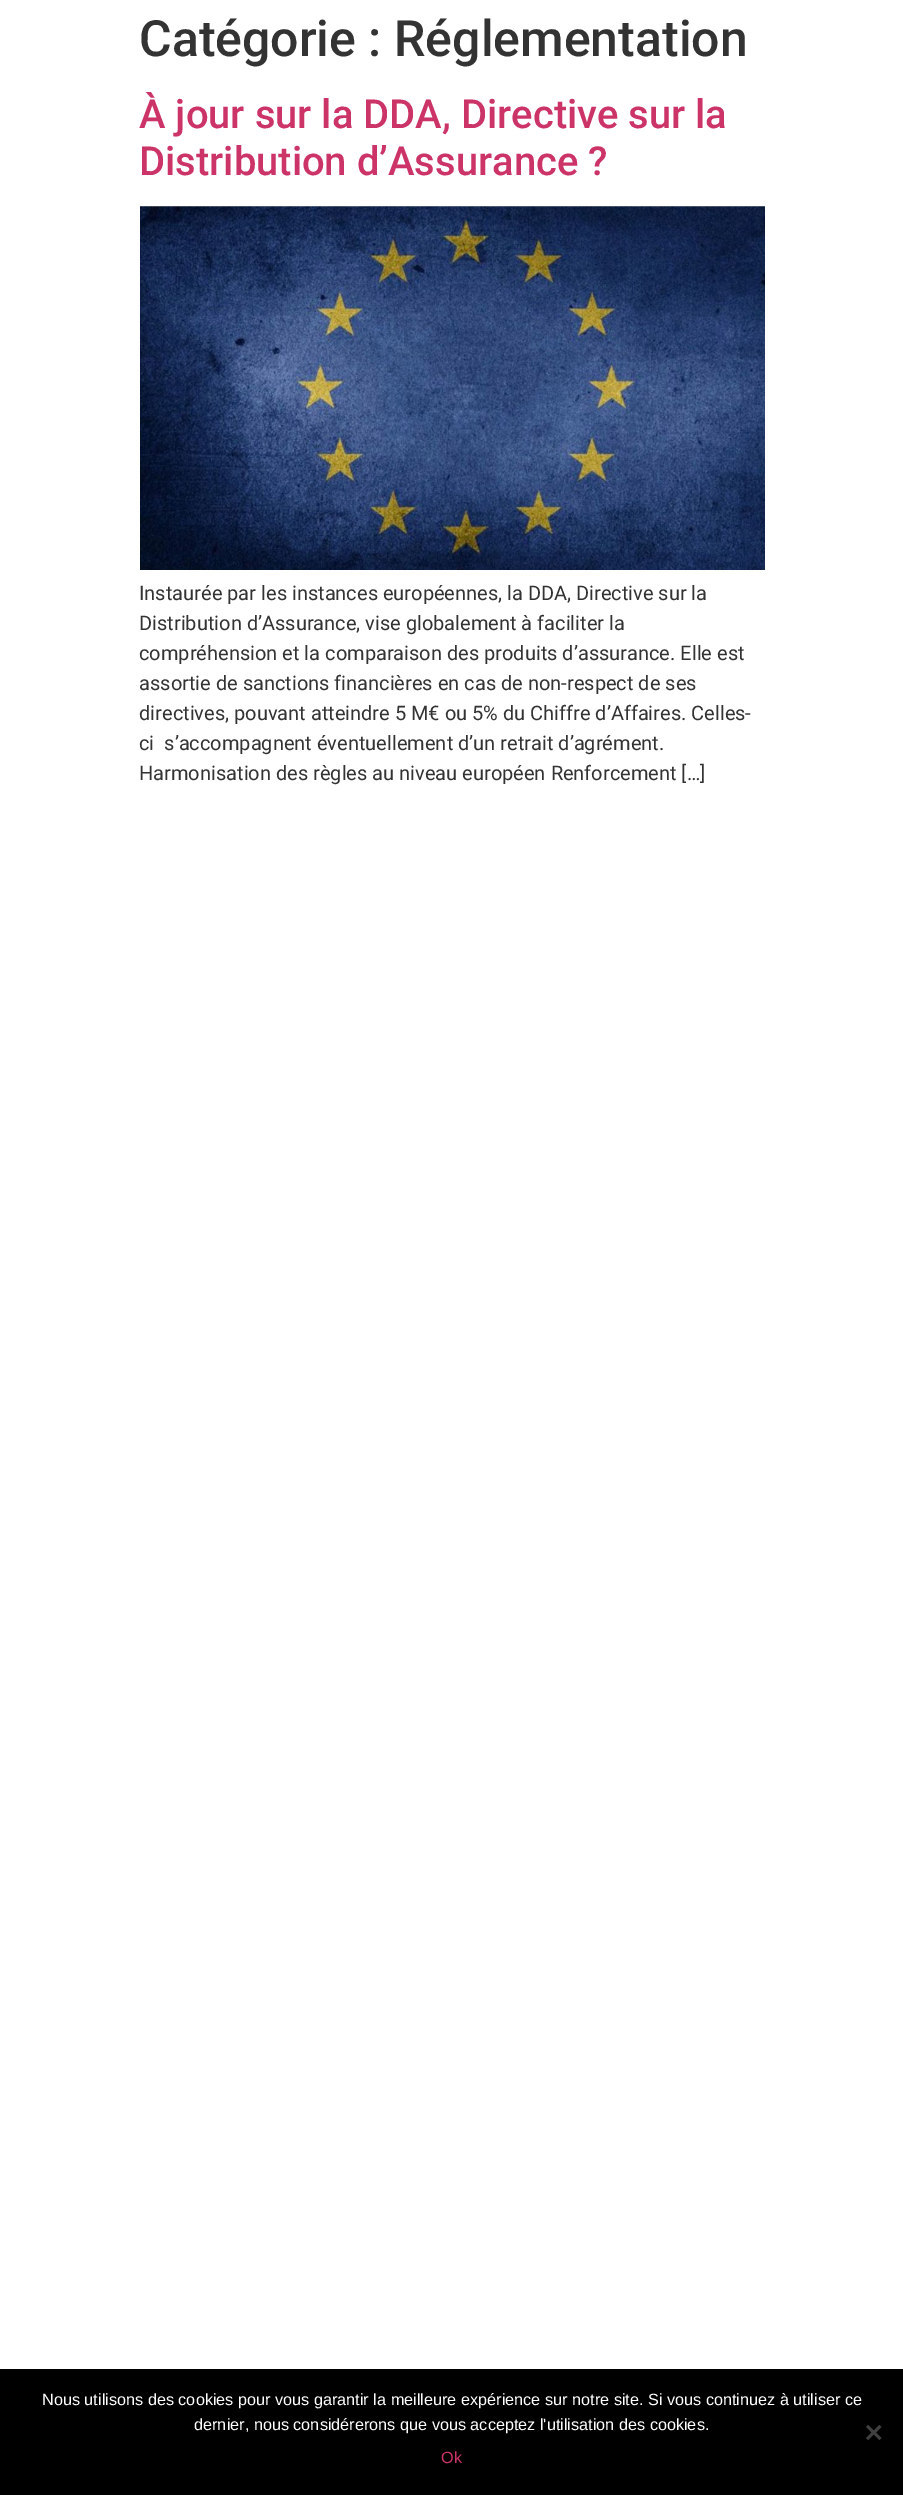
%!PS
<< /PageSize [903 2495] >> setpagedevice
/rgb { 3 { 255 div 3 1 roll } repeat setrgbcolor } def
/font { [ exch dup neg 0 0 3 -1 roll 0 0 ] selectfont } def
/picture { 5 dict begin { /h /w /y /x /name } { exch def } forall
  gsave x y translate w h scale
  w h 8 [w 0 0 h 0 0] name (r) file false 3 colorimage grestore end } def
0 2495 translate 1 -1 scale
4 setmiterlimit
255 255 255 rgb
0 0 903 2495 rectfill
(img/1.rgb) 140 206 625 364 picture
0 0 0 rgb
0 2369 903 126 rectfill
64 64 64 rgb
879.5 2425 moveto 881.5 2427 lineto 868 2440 lineto 866 2438 lineto closepath fill
866 2427 moveto 868 2425 lineto 881.5 2438 lineto 879.5 2440 lineto closepath fill
/Roboto-Medium 50 font
51 51 51 rgb
139 56 moveto (Catégorie : Réglementation) show
/Roboto-Medium 40 font
204 51 102 rgb
139 128 moveto (À jour sur la DDA, Directive sur la) show
139 175 moveto (Distribution d’Assurance ?) show
/Roboto-Regular 20 font
51 51 51 rgb
[
  [(Instaurée par les instances européennes, la DDA, Directive sur la) 139 600]
  [(Distribution d’Assurance, vise globalement à faciliter la) 139 630]
  [(compréhension et la comparaison des produits d’assurance. Elle est) 139 660]
  [(assortie de sanctions financières en cas de non-respect de ses) 139 690]
  [(directives, pouvant atteindre 5 M€ ou 5% du Chiffre d’Affaires. Celles-) 139 720]
  [(ci  s’accompagnent éventuellement d’un retrait d’agrément.) 139 750]
  [(Harmonisation des règles au niveau européen Renforcement […]) 139 780]
] { aload pop moveto show } forall
/LiberationSans-Regular 16.25 font
255 255 255 rgb
42 2405 moveto (Nous utilisons des cookies pour vous garantir la meilleure expérience sur notre site. Si vous continuez à utiliser ce) show
194 2430 moveto (dernier, nous considérerons que vous acceptez l'utilisation des cookies.) show
204 51 102 rgb
441 2463 moveto (Ok) show
showpage
